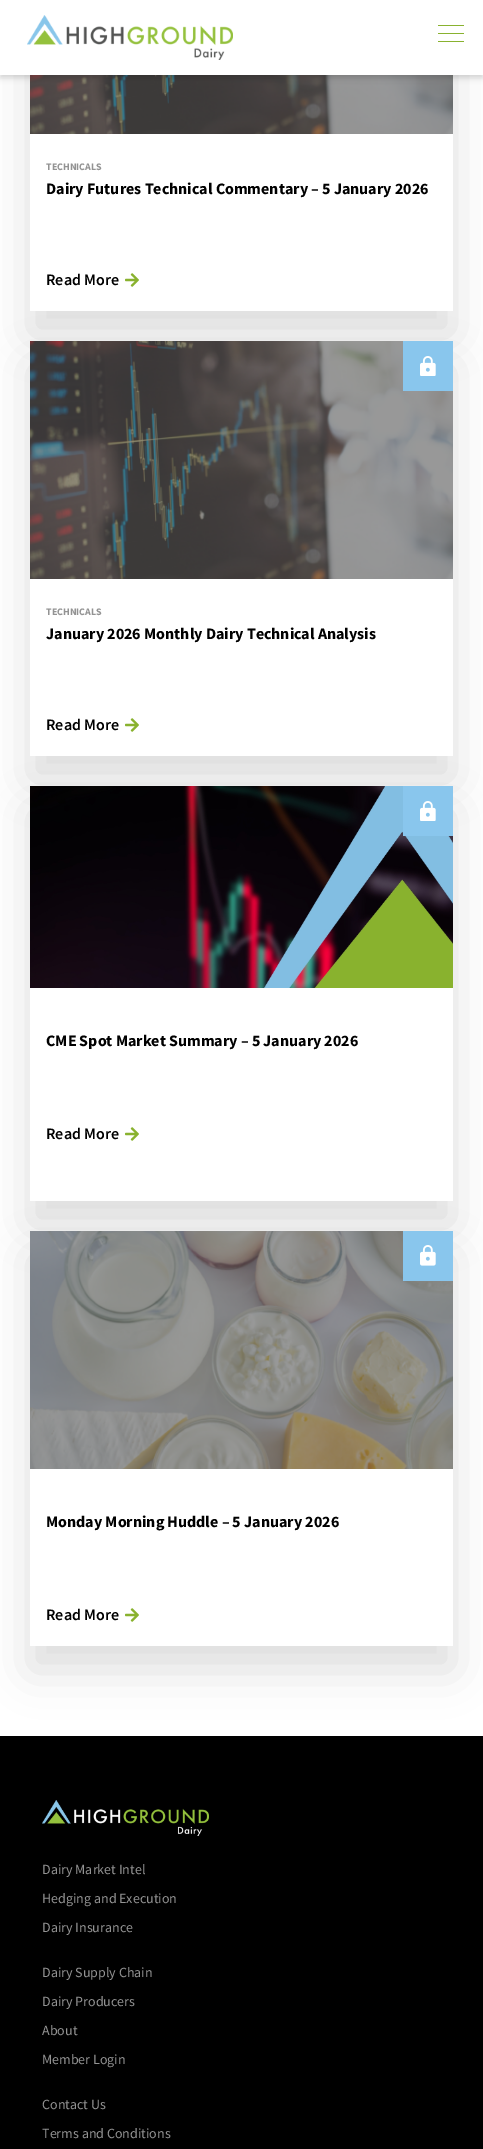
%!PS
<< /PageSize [483 2149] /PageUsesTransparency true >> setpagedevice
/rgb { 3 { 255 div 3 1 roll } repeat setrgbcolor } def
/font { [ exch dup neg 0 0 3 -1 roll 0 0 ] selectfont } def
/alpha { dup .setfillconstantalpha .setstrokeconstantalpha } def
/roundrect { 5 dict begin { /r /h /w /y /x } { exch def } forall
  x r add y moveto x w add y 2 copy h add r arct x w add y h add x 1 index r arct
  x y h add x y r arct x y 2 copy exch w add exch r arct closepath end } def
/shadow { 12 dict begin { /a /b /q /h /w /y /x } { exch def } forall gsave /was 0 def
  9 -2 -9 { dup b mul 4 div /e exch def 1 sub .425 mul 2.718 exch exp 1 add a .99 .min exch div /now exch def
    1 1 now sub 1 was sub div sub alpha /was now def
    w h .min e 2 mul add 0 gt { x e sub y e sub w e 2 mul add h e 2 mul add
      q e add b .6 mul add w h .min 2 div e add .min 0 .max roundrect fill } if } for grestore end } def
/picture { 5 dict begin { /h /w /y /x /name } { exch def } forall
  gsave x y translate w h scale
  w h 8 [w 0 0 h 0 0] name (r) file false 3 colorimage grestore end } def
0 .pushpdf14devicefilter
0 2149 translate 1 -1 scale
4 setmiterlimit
255 255 255 rgb
0 0 483 2149 rectfill
gsave
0 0 moveto 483 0 lineto 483 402 lineto 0 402 lineto closepath 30 -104 moveto 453 -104 lineto 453 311 lineto 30 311 lineto closepath eoclip newpath
0 0 0 rgb
30 -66 423 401 0 22 0.14 shadow
grestore
(img/2.rgb) 30 75 423 59 picture
0 0 0 rgb
0 3 483 75 0 3 0.16 shadow
255 255 255 rgb
0 0 483 75 rectfill
(img/1.rgb) 27 15 206 45 picture
[
  [438 33 26 1 137 178 47]
  [438 25 26 1 137 178 47]
  [438 41 26 1 137 178 47]
] { aload pop rgb rectfill } forall
(img/3.rgb) 125 273 14 14 picture
gsave
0 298 moveto 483 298 lineto 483 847 lineto 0 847 lineto closepath 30 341 moveto 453 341 lineto 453 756 lineto 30 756 lineto closepath eoclip newpath
0 0 0 rgb
30 365 423 415 0 22 0.14 shadow
grestore
(img/4.rgb) 30 341 423 238 picture
137 198 237 rgb
403 341 50 50 rectfill
(img/5.rgb) 420 356 16 20 picture
(img/3.rgb) 125 718 14 14 picture
gsave
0 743 moveto 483 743 lineto 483 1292 lineto 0 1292 lineto closepath 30 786 moveto 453 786 lineto 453 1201 lineto 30 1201 lineto closepath eoclip newpath
0 0 0 rgb
30 810 423 415 0 22 0.14 shadow
grestore
(img/6.rgb) 30 786 423 202 picture
403 786 50 50 rectfill
(img/5.rgb) 420 801 16 20 picture
(img/3.rgb) 125 1127 14 14 picture
0 0 0 rgb
0 1736 483 413 rectfill
gsave
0 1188 moveto 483 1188 lineto 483 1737 lineto 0 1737 lineto closepath 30 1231 moveto 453 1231 lineto 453 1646 lineto 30 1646 lineto closepath eoclip newpath
30 1255 423 415 0 22 0.14 shadow
grestore
(img/7.rgb) 30 1231 423 238 picture
137 198 237 rgb
403 1231 50 50 rectfill
(img/8.rgb) 420 1245 16 21 picture
(img/3.rgb) 125 1608 14 14 picture
(img/9.rgb) 42 1800 167 36 picture
/SourceSansPro-Bold 10 font
147 147 147 rgb
46 170 moveto (TECHNICALS) show
/SourceSansPro-Bold 16 font
0 0 0 rgb
46 194 moveto (Dairy Futures Technical Commentary – 5 January 2026) show
/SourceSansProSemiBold-SemiBold 16 font
46 285 moveto (Read More) show
/SourceSansPro-Bold 10 font
147 147 147 rgb
46 615 moveto (TECHNICALS) show
/SourceSansPro-Bold 16 font
0 0 0 rgb
46 639 moveto (January 2026 Monthly Dairy Technical Analysis) show
/SourceSansProSemiBold-SemiBold 16 font
46 730 moveto (Read More) show
/SourceSansPro-Bold 16 font
46 1046 moveto (CME Spot Market Summary – 5 January 2026) show
/SourceSansProSemiBold-SemiBold 16 font
46 1139 moveto (Read More) show
/SourceSansPro-Bold 16 font
46 1527 moveto (Monday Morning Huddle – 5 January 2026) show
/SourceSansProSemiBold-SemiBold 16 font
46 1620 moveto (Read More) show
/SourceSansPro-Regular 14 font
147 147 147 rgb
[
  [(Dairy Market Intel) 42 1874]
  [(Hedging and Execution) 42 1903]
  [(Dairy Insurance) 42 1932]
  [(Dairy Supply Chain) 42 1977]
  [(Dairy Producers) 42 2006]
  [(About) 42 2035]
  [(Member Login) 42 2064]
  [(Contact Us) 42 2109]
  [(Terms and Conditions) 42 2138]
] { aload pop moveto show } forall
.poppdf14devicefilter showpage
